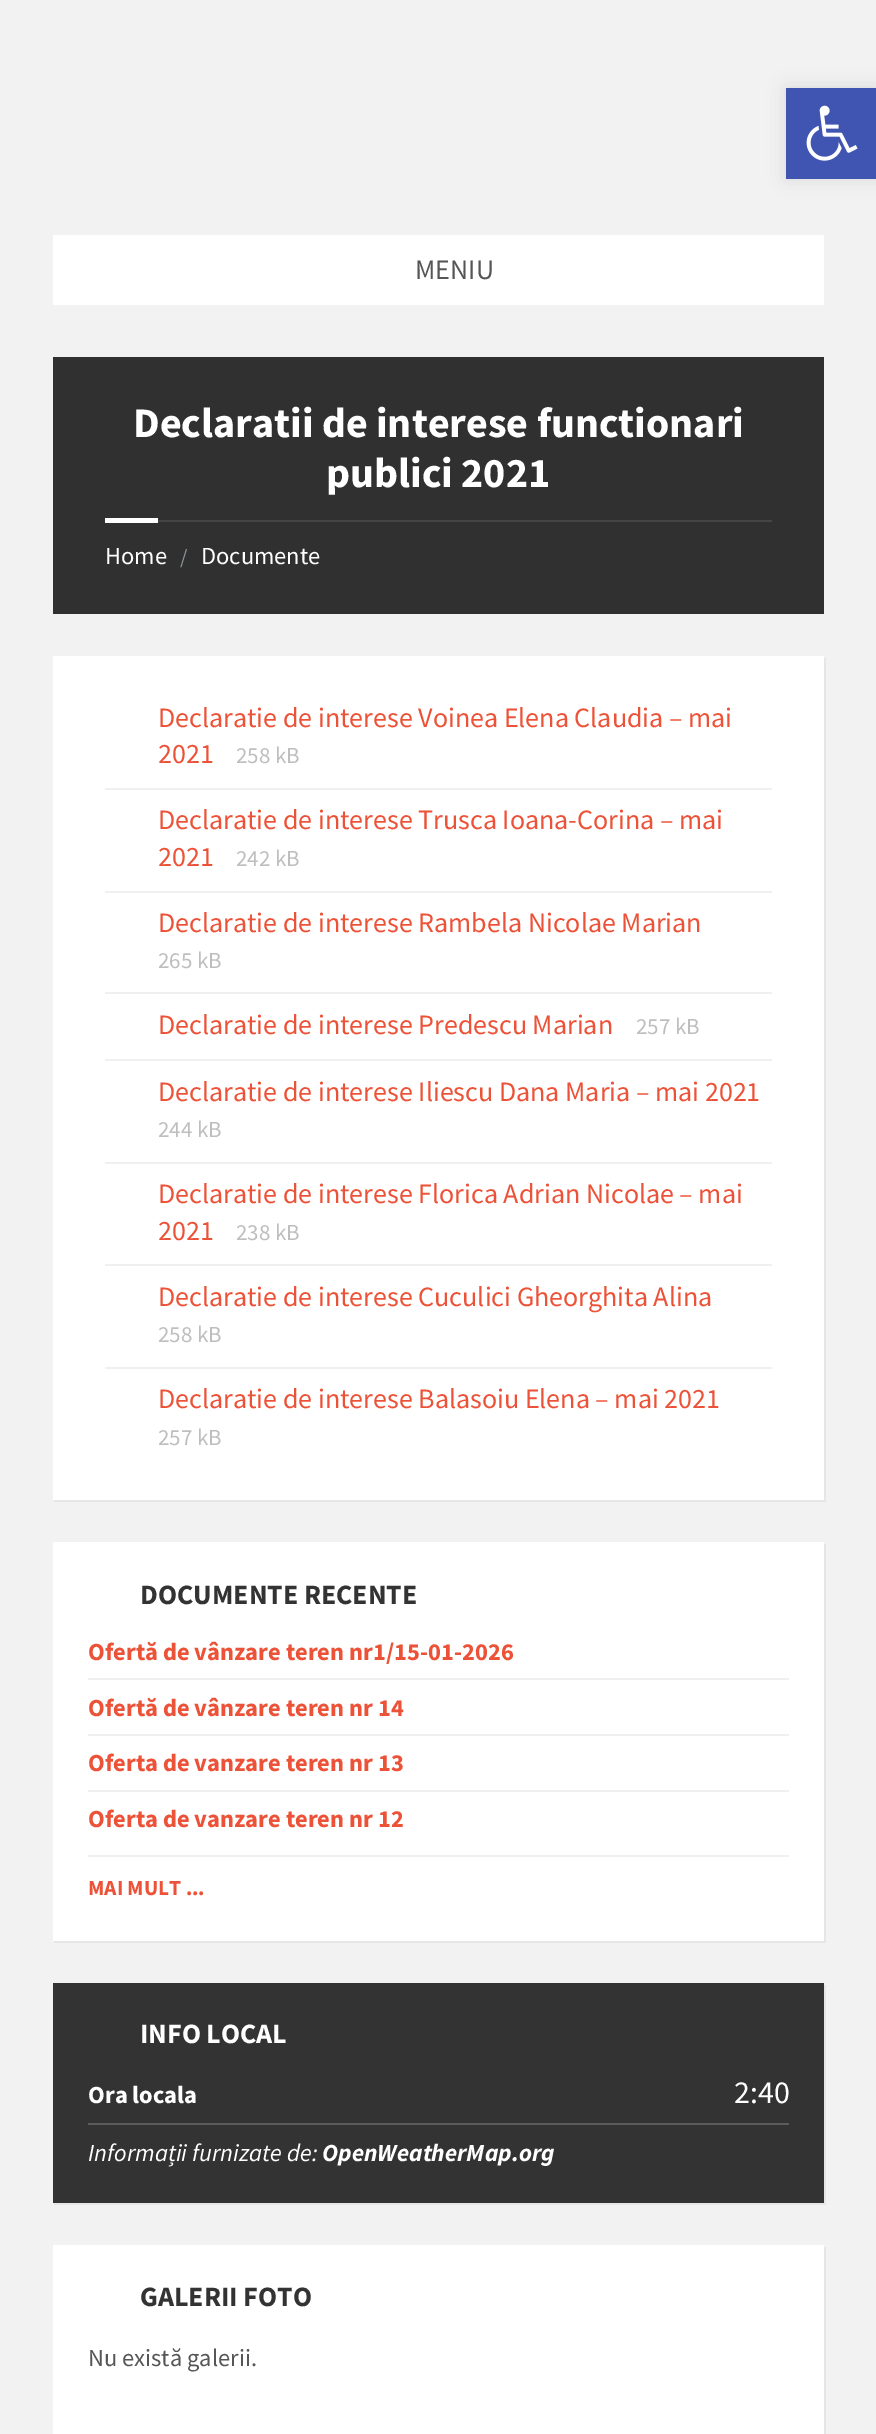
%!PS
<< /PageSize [876 2434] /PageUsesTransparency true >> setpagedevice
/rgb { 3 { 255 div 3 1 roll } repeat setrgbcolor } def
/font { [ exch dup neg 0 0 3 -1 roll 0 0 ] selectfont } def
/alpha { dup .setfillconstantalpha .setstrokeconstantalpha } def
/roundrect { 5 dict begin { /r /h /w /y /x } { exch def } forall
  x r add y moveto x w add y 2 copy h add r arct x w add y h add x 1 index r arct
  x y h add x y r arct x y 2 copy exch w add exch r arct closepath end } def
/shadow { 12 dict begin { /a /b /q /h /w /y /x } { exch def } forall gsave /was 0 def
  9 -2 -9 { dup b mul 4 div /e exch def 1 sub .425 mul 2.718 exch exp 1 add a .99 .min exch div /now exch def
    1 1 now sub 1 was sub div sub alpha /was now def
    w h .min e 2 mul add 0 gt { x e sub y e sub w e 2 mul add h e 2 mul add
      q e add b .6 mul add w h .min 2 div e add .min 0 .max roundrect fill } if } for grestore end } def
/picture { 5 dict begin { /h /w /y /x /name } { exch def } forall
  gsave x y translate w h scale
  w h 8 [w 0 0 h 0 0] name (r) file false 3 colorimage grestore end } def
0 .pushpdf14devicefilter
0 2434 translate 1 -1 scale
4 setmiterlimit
242 242 242 rgb
0 0 876 2434 rectfill
0 0 0 rgb
786 88 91 91 0 9 0.1 shadow
64 84 178 rgb
786 88 90 91 rectfill
(img/1.rgb) 806 105 52 56 picture
[
  [53 235 771 70 255 255 255]
  [53 357 771 257 48 48 48]
  [158 520 614 2 69 69 69]
  [105 518 53 5 255 255 255]
] { aload pop rgb rectfill } forall
230 230 230 rgb
54 1500 moveto 54 1502 lineto 826 1502 lineto 826 658 lineto 824 658 lineto 824 1500 lineto closepath fill
[
  [53 656 771 844 255 255 255]
  [105 788 667 2 240 240 240]
  [105 891 667 2 240 240 240]
  [105 992 667 2 240 240 240]
  [105 1059 667 2 240 240 240]
  [105 1162 667 2 240 240 240]
  [105 1264 667 2 240 240 240]
  [105 1367 667 2 240 240 240]
] { aload pop rgb rectfill } forall
230 230 230 rgb
54 1941 moveto 54 1943 lineto 826 1943 lineto 826 1544 lineto 824 1544 lineto 824 1941 lineto closepath fill
[
  [53 1542 771 399 255 255 255]
  [88 1678 701 2 240 240 240]
  [88 1734 701 2 240 240 240]
  [88 1790 701 2 240 240 240]
  [88 1855 701 2 240 240 240]
] { aload pop rgb rectfill } forall
230 230 230 rgb
54 2203 moveto 54 2205 lineto 826 2205 lineto 826 1985 lineto 824 1985 lineto 824 2203 lineto closepath fill
51 51 51 rgb
53 1983 771 220 rectfill
92 92 92 rgb
88 2123 701 2 rectfill
230 230 230 rgb
54 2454 moveto 54 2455 lineto 826 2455 lineto 826 2247 lineto 824 2247 lineto 824 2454 lineto closepath fill
255 255 255 rgb
53 2245 771 189 rectfill
/SourceSansPro-Regular 28 font
86 86 86 rgb
415 279 moveto (MENIU) show
/SourceSansPro-Bold 42 font
255 255 255 rgb
133 437 moveto (Declaratii de interese functionari) show
326 487 moveto (publici 2021) show
/SourceSansPro-Regular 24.5 font
105 564 moveto (Home) show
/SourceSansPro-Regular 21 font
138 148 155 rgb
180 564 moveto (/) show
/SourceSansPro-Regular 24.5 font
255 255 255 rgb
201 564 moveto (Documente) show
/SourceSansPro-Regular 28 font
236 82 55 rgb
158 727 moveto (Declaratie de interese Voinea Elena Claudia – mai) show
158 763 moveto (2021) show
/SourceSansPro-Regular 23 font
190 190 190 rgb
236 763 moveto (258 kB) show
/SourceSansPro-Regular 28 font
236 82 55 rgb
158 829 moveto (Declaratie de interese Trusca Ioana-Corina – mai) show
158 866 moveto (2021) show
/SourceSansPro-Regular 23 font
190 190 190 rgb
236 866 moveto (242 kB) show
/SourceSansPro-Regular 28 font
236 82 55 rgb
158 932 moveto (Declaratie de interese Rambela Nicolae Marian) show
/SourceSansPro-Regular 23 font
190 190 190 rgb
158 968 moveto (265 kB) show
/SourceSansPro-Regular 28 font
236 82 55 rgb
158 1034 moveto (Declaratie de interese Predescu Marian) show
/SourceSansPro-Regular 23 font
190 190 190 rgb
636 1034 moveto (257 kB) show
/SourceSansPro-Regular 28 font
236 82 55 rgb
158 1101 moveto (Declaratie de interese Iliescu Dana Maria – mai 2021) show
/SourceSansPro-Regular 23 font
190 190 190 rgb
158 1137 moveto (244 kB) show
/SourceSansPro-Regular 28 font
236 82 55 rgb
158 1203 moveto (Declaratie de interese Florica Adrian Nicolae – mai) show
158 1240 moveto (2021) show
/SourceSansPro-Regular 23 font
190 190 190 rgb
236 1240 moveto (238 kB) show
/SourceSansPro-Regular 28 font
236 82 55 rgb
158 1306 moveto (Declaratie de interese Cuculici Gheorghita Alina) show
/SourceSansPro-Regular 23 font
190 190 190 rgb
158 1342 moveto (258 kB) show
/SourceSansPro-Regular 28 font
236 82 55 rgb
158 1408 moveto (Declaratie de interese Balasoiu Elena – mai 2021) show
/SourceSansPro-Regular 23 font
190 190 190 rgb
158 1445 moveto (257 kB) show
/SourceSansPro-Bold 28 font
51 51 51 rgb
140 1604 moveto (DOCUMENTE RECENTE) show
/SourceSansPro-Bold 24.5 font
236 82 55 rgb
[
  [(Ofertă de vânzare teren nr1/15-01-2026) 88 1660]
  [(Ofertă de vânzare teren nr 14) 88 1716]
  [(Oferta de vanzare teren nr 13) 88 1771]
  [(Oferta de vanzare teren nr 12) 88 1827]
] { aload pop moveto show } forall
/SourceSansPro-Bold 21.5 font
88 1895 moveto (MAI MULT ...) show
/SourceSansPro-Bold 28 font
255 255 255 rgb
140 2043 moveto (INFO LOCAL) show
/SourceSansPro-Bold 24.5 font
88 2103 moveto (Ora locala) show
/SourceSansPro-Regular 32 font
734 2103 moveto (2:40) show
/SourceSansPro-Italic 24.5 font
88 2161 moveto (Informații furnizate de:) show
/SourceSansPro-BoldItalic 24.5 font
322 2161 moveto (OpenWeatherMap.org) show
/SourceSansPro-Bold 28 font
51 51 51 rgb
140 2306 moveto (GALERII FOTO) show
/SourceSansPro-Regular 24.5 font
86 86 86 rgb
88 2366 moveto (Nu există galerii.) show
.poppdf14devicefilter showpage
